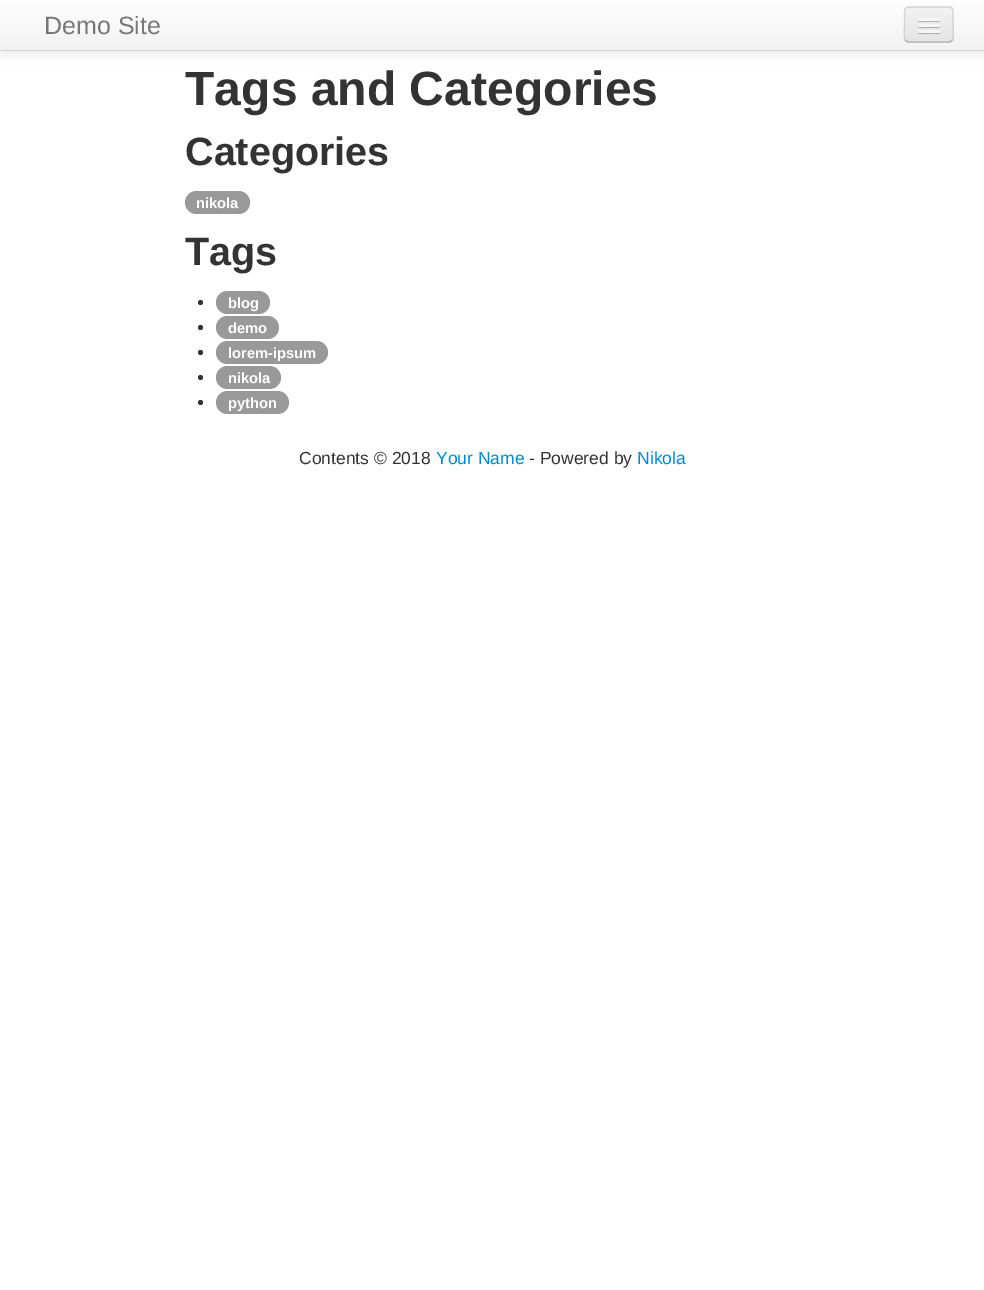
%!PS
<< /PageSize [984 1290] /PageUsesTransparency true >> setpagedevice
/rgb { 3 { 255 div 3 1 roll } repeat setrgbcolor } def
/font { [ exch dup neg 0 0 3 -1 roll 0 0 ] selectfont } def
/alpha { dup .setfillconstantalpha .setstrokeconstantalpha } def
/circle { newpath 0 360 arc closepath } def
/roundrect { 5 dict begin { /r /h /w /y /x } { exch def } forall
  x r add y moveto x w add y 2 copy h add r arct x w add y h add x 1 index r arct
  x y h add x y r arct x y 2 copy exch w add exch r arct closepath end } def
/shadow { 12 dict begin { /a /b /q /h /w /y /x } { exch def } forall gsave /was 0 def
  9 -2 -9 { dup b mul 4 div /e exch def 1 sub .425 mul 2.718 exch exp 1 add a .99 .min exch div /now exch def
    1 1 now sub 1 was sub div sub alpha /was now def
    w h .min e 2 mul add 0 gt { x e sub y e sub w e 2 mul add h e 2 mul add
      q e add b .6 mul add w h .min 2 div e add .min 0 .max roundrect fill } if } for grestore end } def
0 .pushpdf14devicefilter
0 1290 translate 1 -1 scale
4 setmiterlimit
255 255 255 rgb
0 0 984 1290 rectfill
0 0 0 rgb
0 1 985 52 0 6 0.1 shadow
gsave 0 0 moveto 984 0 lineto 984 50 lineto 0 50 lineto closepath clip newpath
<< /ShadingType 2 /ColorSpace /DeviceRGB /Coords [493 0 493 50] /Extend [true true] /Function << /FunctionType 2 /Domain [0 1] /C0 [1 1 1] /C1 [0.949 0.949 0.949] /N 1 >> >> shfill grestore
212 212 212 rgb
0 50 984 1 rectfill
237 237 237 rgb
904 6 50 37 5 roundrect fill
gsave
904 6 50 37 5 roundrect clip newpath
gsave 904 8 moveto 954 8 lineto 954 41 lineto 904 41 lineto closepath clip newpath
<< /ShadingType 2 /ColorSpace /DeviceRGB /Coords [929 7.5 929 41] /Extend [true true] /Function << /FunctionType 2 /Domain [0 1] /C0 [0.949 0.949 0.949] /C1 [0.898 0.898 0.898] /N 1 >> >> shfill grestore
grestore
0.25 alpha
0 0 0 rgb
1.2 setlinewidth
952 40.5 moveto 951 41.5 950 42 949 42 curveto 909 42 lineto 907.5 42 906.5 41.5 905.5 40.5 curveto stroke
0.1 alpha
905.5 40.5 moveto 903 38 904.5 27.5 904.5 24.5 curveto 904.5 15.5 lineto 904.5 12.5 903.5 8 908 7 curveto 949.5 7 lineto 954 8 953 12.5 953 15.5 curveto 953 24.5 lineto 953 27.5 954.5 38 952 40.5 curveto stroke
1 alpha
178 178 178 rgb
918 20 moveto 917 22.5 922 22 922.5 22 curveto 935.5 22 lineto 935.5 22 942 22.5 939.5 19.5 curveto 939 20 lineto closepath fill
245 245 245 rgb
918 18 22 3 1.5 roundrect fill
176 176 176 rgb
918 26 moveto 917.5 28.5 922 28 922.5 28 curveto 935.5 28 lineto 936 28 941.5 28.5 940 25.5 curveto 939 26 lineto closepath fill
245 245 245 rgb
918 24 22 3 1.5 roundrect fill
174 174 174 rgb
918 32.5 moveto 917.5 34.5 921.5 34 922.5 34 curveto 935.5 34 lineto 936 34 941 34.5 940 32 curveto 939 32.5 lineto 937 32.5 918.5 32.5 918 32.5 curveto closepath fill
245 245 245 rgb
918 30 22 3 1.5 roundrect fill
153 153 153 rgb
185 191 65 23 11.5 roundrect fill
51 51 51 rgb
200.5 302.5 2.5 circle fill
153 153 153 rgb
216 291 54 23 11.5 roundrect fill
51 51 51 rgb
200.5 327.5 2.5 circle fill
153 153 153 rgb
216 316 63 23 11.5 roundrect fill
51 51 51 rgb
200.5 352.5 2.5 circle fill
153 153 153 rgb
216 341 112 23 11.5 roundrect fill
51 51 51 rgb
200.5 377.5 2.5 circle fill
153 153 153 rgb
216 366 65 23 11.5 roundrect fill
51 51 51 rgb
200.5 402.5 2.5 circle fill
153 153 153 rgb
216 391 73 23 11.5 roundrect fill
/LiberationSans-Regular 25 font
119 119 119 rgb
44 34 moveto (Demo Site) show
/LiberationSans-Bold 48.1 font
51 51 51 rgb
185 105 moveto (Tags and Categories) show
/LiberationSans-Bold 39.5 font
185 165 moveto (Categories) show
/LiberationSans-Bold 14.75 font
255 255 255 rgb
196 208 moveto (nikola) show
/LiberationSans-Bold 39.5 font
51 51 51 rgb
185 265 moveto (Tags) show
/LiberationSans-Bold 14.75 font
255 255 255 rgb
[
  [(blog) 228 308]
  [(demo) 228 333]
  [(lorem-ipsum) 228 358]
  [(nikola) 228 383]
  [(python) 228 408]
] { aload pop moveto show } forall
/LiberationSans-Regular 17.5 font
51 51 51 rgb
299 464 moveto (Contents © 2018) show
0 136 204 rgb
436 464 moveto (Your Name) show
51 51 51 rgb
529 464 moveto (- Powered by) show
0 136 204 rgb
637 464 moveto (Nikola) show
.poppdf14devicefilter showpage
